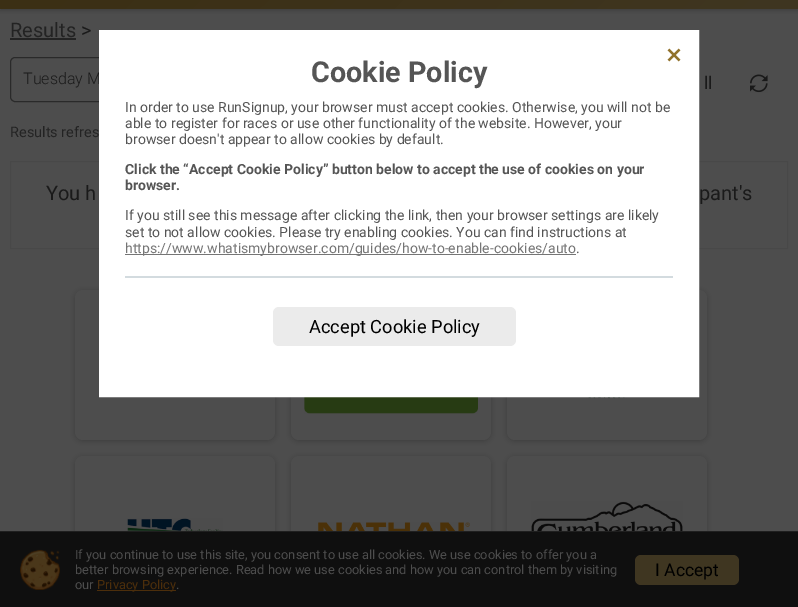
%!PS
<< /PageSize [798 607] /PageUsesTransparency true >> setpagedevice
/rgb { 3 { 255 div 3 1 roll } repeat setrgbcolor } def
/font { [ exch dup neg 0 0 3 -1 roll 0 0 ] selectfont } def
/alpha { dup .setfillconstantalpha .setstrokeconstantalpha } def
/roundrect { 5 dict begin { /r /h /w /y /x } { exch def } forall
  x r add y moveto x w add y 2 copy h add r arct x w add y h add x 1 index r arct
  x y h add x y r arct x y 2 copy exch w add exch r arct closepath end } def
/shadow { 12 dict begin { /a /b /q /h /w /y /x } { exch def } forall gsave /was 0 def
  9 -2 -9 { dup b mul 4 div /e exch def 1 sub .425 mul 2.718 exch exp 1 add a .99 .min exch div /now exch def
    1 1 now sub 1 was sub div sub alpha /was now def
    w h .min e 2 mul add 0 gt { x e sub y e sub w e 2 mul add h e 2 mul add
      q e add b .6 mul add w h .min 2 div e add .min 0 .max roundrect fill } if } for grestore end } def
/picture { 5 dict begin { /h /w /y /x /name } { exch def } forall
  gsave x y translate w h scale
  w h 8 [w 0 0 h 0 0] name (r) file false 3 colorimage grestore end } def
0 .pushpdf14devicefilter
0 607 translate 1 -1 scale
4 setmiterlimit
77 77 77 rgb
0 0 798 607 rectfill
0 0 0 rgb
0 -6 798 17 0 2 0.18 shadow
gsave 0 0 moveto 798 0 lineto 798 9 lineto 0 9 lineto closepath clip newpath
<< /ShadingType 2 /ColorSpace /DeviceRGB /Coords [623 184 175 -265] /Extend [true true] /Function << /FunctionType 2 /Domain [0 1] /C0 [0.247 0.212 0.129] /C1 [0.231 0.18 0.071] /N 1 >> >> shfill grestore
35 35 35 rgb
10 38 66 2 rectfill
42 42 42 rgb
10.5 57.5 248 44 4.5 roundrect stroke
(img/1.rgb) 750 74 18 19 picture
72 72 72 rgb
10.5 161.5 777 87 rectstroke
0 0 0 rgb
75 291 200 150 8 2.5 0.2 shadow
77 77 77 rgb
75 290 200 150 8 roundrect fill
0 0 0 rgb
291 291 200 150 8 2.5 0.2 shadow
77 77 77 rgb
291 290 200 150 8 roundrect fill
(img/2.rgb) 304 397 174 17 picture
0 0 0 rgb
507 291 200 150 8 2.5 0.2 shadow
77 77 77 rgb
507 290 200 150 8 roundrect fill
(img/3.rgb) 549 397 115 2 picture
0 0 0 rgb
75 457 200 150 8 2.5 0.2 shadow
77 77 77 rgb
75 456 200 150 8 roundrect fill
(img/4.rgb) 127 518 96 13 picture
0 0 0 rgb
291 457 200 150 8 2.5 0.2 shadow
77 77 77 rgb
291 456 200 150 8 roundrect fill
(img/5.rgb) 318 522 152 9 picture
0 0 0 rgb
507 457 200 150 8 2.5 0.2 shadow
77 77 77 rgb
507 456 200 150 8 roundrect fill
(img/6.rgb) 531 501 152 30 picture
15 15 15 rgb
0 532 798 75 rectfill
31 31 31 rgb
0 531 798 1 rectfill
(img/8.rgb) 20 549 40 41 picture
76 46 11 rgb
97 590 79 1 rectfill
63 54 33 rgb
635 555 104 30 6 roundrect fill
/Roboto-Regular 20 font
35 35 35 rgb
10 37 moveto (Results) show
26 26 26 rgb
81 37 moveto (>) show
/Roboto-Light 16 font
23 84 moveto (Tuesday M) show
/Roboto-Regular 17.5 font
704 89 moveto (ll) show
/Roboto-Regular 14.5 font
35 35 35 rgb
10 137 moveto (Results refres) show
/Roboto-Regular 20 font
26 26 26 rgb
46 200 moveto (You h) show
699 200 moveto (pant's) show
255 255 255 rgb
99.5 30.5 599 366 rectstroke
100 31 598 365 rectfill
(img/7.rgb) 667 48 14 14 picture
/Roboto-Bold 28.75 font
85 85 85 rgb
311 82 moveto (Cookie Policy) show
/Roboto-Regular 14 font
[
  [(In order to use RunSignup, your browser must accept cookies. Otherwise, you will not be) 125 112]
  [(able to register for races or use other functionality of the website. However, your) 125 128]
  [(browser doesn't appear to allow cookies by default.) 125 144]
] { aload pop moveto show } forall
/Roboto-Bold 14 font
125 174 moveto (Click the “Accept Cookie Policy” button below to accept the use of cookies on your) show
125 190 moveto (browser.) show
/Roboto-Regular 14 font
125 220 moveto (If you still see this message after clicking the link, then your browser settings are likely) show
125 237 moveto (set to not allow cookies. Please try enabling cookies. You can find instructions at) show
117 117 117 rgb
125 254 451 1 rectfill
125 253 moveto (https://www.whatismybrowser.com/guides/how-to-enable-cookies/auto) show
85 85 85 rgb
576 253 moveto (.) show
211 219 223 rgb
125 276 548 2 rectfill
235 235 235 rgb
273 307 243 39 6 roundrect fill
/Roboto-Regular 18.25 font
0 0 0 rgb
309 333 moveto (Accept Cookie Policy) show
/Roboto-Regular 12.8 font
77 77 77 rgb
[
  [(If you continue to use this site, you consent to use all cookies. We use cookies to offer you a) 75 559]
  [(better browsing experience. Read how we use cookies and how you can control them by visiting) 75 574]
  [(our) 75 589]
] { aload pop moveto show } forall
76 46 11 rgb
97 589 moveto (Privacy Policy) show
77 77 77 rgb
176 589 moveto (.) show
/Roboto-Regular 17.5 font
0 0 0 rgb
655 576 moveto (I Accept) show
.poppdf14devicefilter showpage
